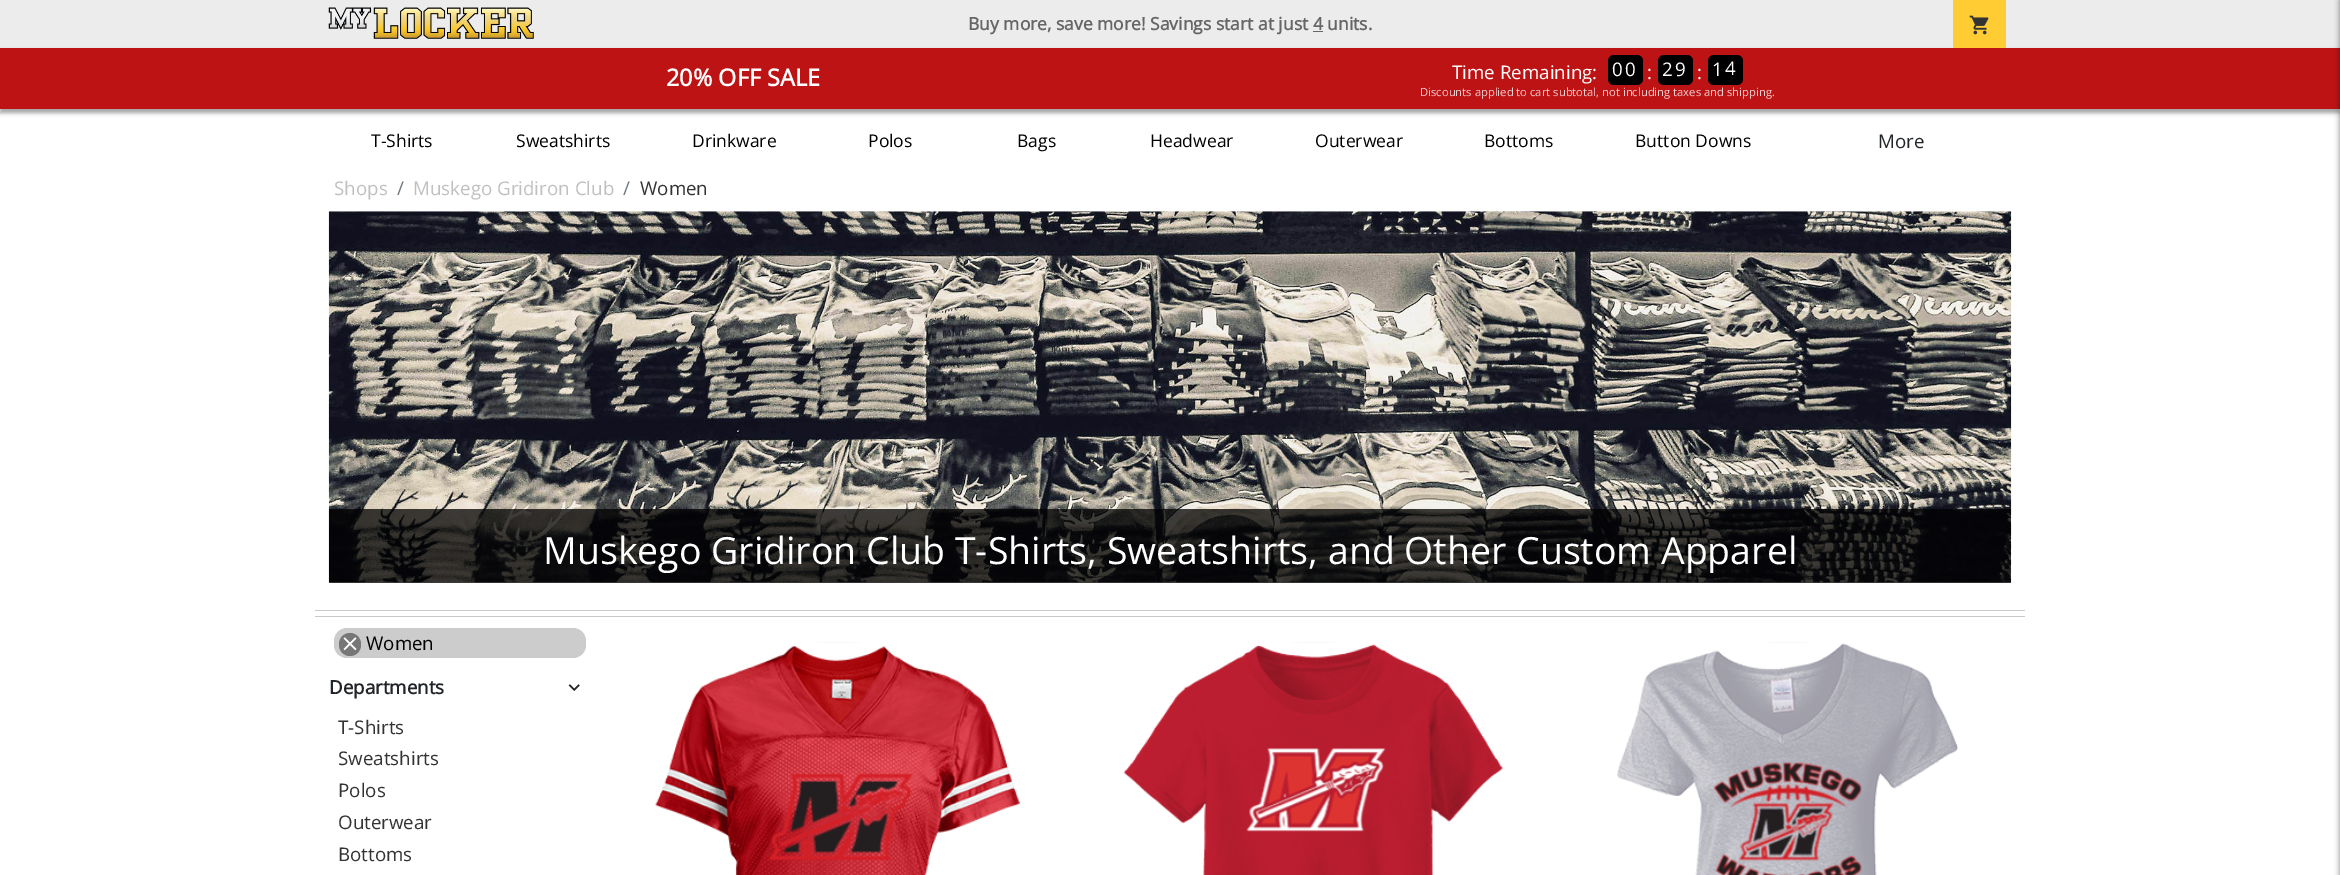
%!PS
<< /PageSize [2340 875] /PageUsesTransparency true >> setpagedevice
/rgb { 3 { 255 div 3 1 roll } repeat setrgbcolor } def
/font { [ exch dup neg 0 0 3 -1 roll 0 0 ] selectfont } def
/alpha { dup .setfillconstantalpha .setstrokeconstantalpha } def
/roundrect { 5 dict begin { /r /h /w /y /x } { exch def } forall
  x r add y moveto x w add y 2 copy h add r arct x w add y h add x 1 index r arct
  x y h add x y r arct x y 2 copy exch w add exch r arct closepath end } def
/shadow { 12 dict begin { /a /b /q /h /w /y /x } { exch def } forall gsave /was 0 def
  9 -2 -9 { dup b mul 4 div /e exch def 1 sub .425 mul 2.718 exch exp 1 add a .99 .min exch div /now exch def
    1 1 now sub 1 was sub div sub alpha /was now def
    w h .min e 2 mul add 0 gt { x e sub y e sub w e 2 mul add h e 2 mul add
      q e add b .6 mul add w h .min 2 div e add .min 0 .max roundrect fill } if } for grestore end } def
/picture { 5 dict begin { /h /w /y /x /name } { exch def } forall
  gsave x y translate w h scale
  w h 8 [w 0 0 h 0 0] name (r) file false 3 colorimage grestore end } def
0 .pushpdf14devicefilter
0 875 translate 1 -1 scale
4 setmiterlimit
255 255 255 rgb
0 0 2340 875 rectfill
236 236 236 rgb
0 0 2340 48 rectfill
(img/1.rgb) 328 7 206 32 picture
102 102 102 rgb
1313 31 10 1 rectfill
0 0 0 rgb
0 51 2340 62 0 2 0.35 shadow
255 204 51 rgb
1953 0 53 48 rectfill
(img/2.rgb) 1969 15 20 20 picture
189 19 20 rgb
0 48 2340 61 rectfill
0 0 0 rgb
1608 55 35 30 6 roundrect fill
1658 55 35 30 6 roundrect fill
1708 55 35 30 6 roundrect fill
2340 0 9 875 0 3 0.5 shadow
(img/3.rgb) 328 211 1684 372 picture
0.75 alpha
[
  [329 509 1682 74 0 0 0]
] { aload pop rgb rectfill } forall
1 alpha
[
  [315 610 1710 1 200 201 202]
  [315 616 1710 1 200 201 202]
] { aload pop rgb rectfill } forall
204 204 204 rgb
334 628 252 30 13 roundrect fill
119 119 119 rgb
339 633 22 23 11 roundrect fill
(img/4.rgb) 343 637 14 14 picture
(img/5.rgb) 568 684 12 7 picture
(img/6.rgb) 817 642 44 1 picture
(img/7.rgb) 655 645 365 230 picture
(img/6.rgb) 1292 642 44 1 picture
(img/8.rgb) 1123 644 380 231 picture
(img/6.rgb) 1767 642 44 1 picture
(img/9.rgb) 1617 643 342 232 picture
/OpenSans-Bold 17.5 font
102 102 102 rgb
968 30 moveto (Buy more, save more! Savings start at just 4 units.) show
/OpenSans-Bold 23.5 font
255 255 255 rgb
666 86 moveto (20% OFF SALE) show
/OpenSans-Regular 18.75 font
1452 79 moveto (Time Remaining:) show
1612 76 moveto 6 0 (0) ashow
1625 76 moveto 6 0 (0) ashow
1647 79 moveto (:) show
1662 76 moveto 6 0 (2) ashow
1675 76 moveto 6 0 (9) ashow
1697 79 moveto (:) show
1712 76 moveto 6 0 (1) ashow
1725 75 moveto 6 0 (4) ashow
/OpenSans-Regular 11.25 font
242 208 208 rgb
1420 96 moveto (Discounts applied to cart subtotal, not including taxes and shipping.) show
/OpenSans-Regular 17.5 font
0 0 0 rgb
[
  [(T-Shirts) 371 147]
  [(Sweatshirts) 516 147]
  [(Drinkware) 692 147]
  [(Polos) 868 147]
  [(Bags) 1017 147]
  [(Headwear) 1150 147]
  [(Outerwear) 1315 147]
  [(Bottoms) 1484 147]
  [(Button Downs) 1635 147]
] { aload pop moveto show } forall
/OpenSans-Regular 18.75 font
33 37 41 rgb
1878 148 moveto (More) show
192 192 192 rgb
334 195 moveto (Shops) show
108 117 125 rgb
397 195 moveto (/) show
192 192 192 rgb
413 195 moveto (Muskego Gridiron Club) show
108 117 125 rgb
623 195 moveto (/) show
51 51 51 rgb
640 195 moveto (Women) show
/OpenSans-Regular 37.5 font
255 255 255 rgb
543 564 moveto (Muskego Gridiron Club T-Shirts, Sweatshirts, and Other Custom Apparel) show
/OpenSans-Regular 18.75 font
0 0 0 rgb
366 650 moveto (Women) show
/OpenSans-Bold 18.75 font
33 37 41 rgb
329 694 moveto (Departments) show
/OpenSans-Regular 18.75 font
51 51 51 rgb
[
  [(T-Shirts) 338 734]
  [(Sweatshirts) 338 765]
  [(Polos) 338 797]
  [(Outerwear) 338 829]
  [(Bottoms) 338 861]
] { aload pop moveto show } forall
.poppdf14devicefilter showpage
